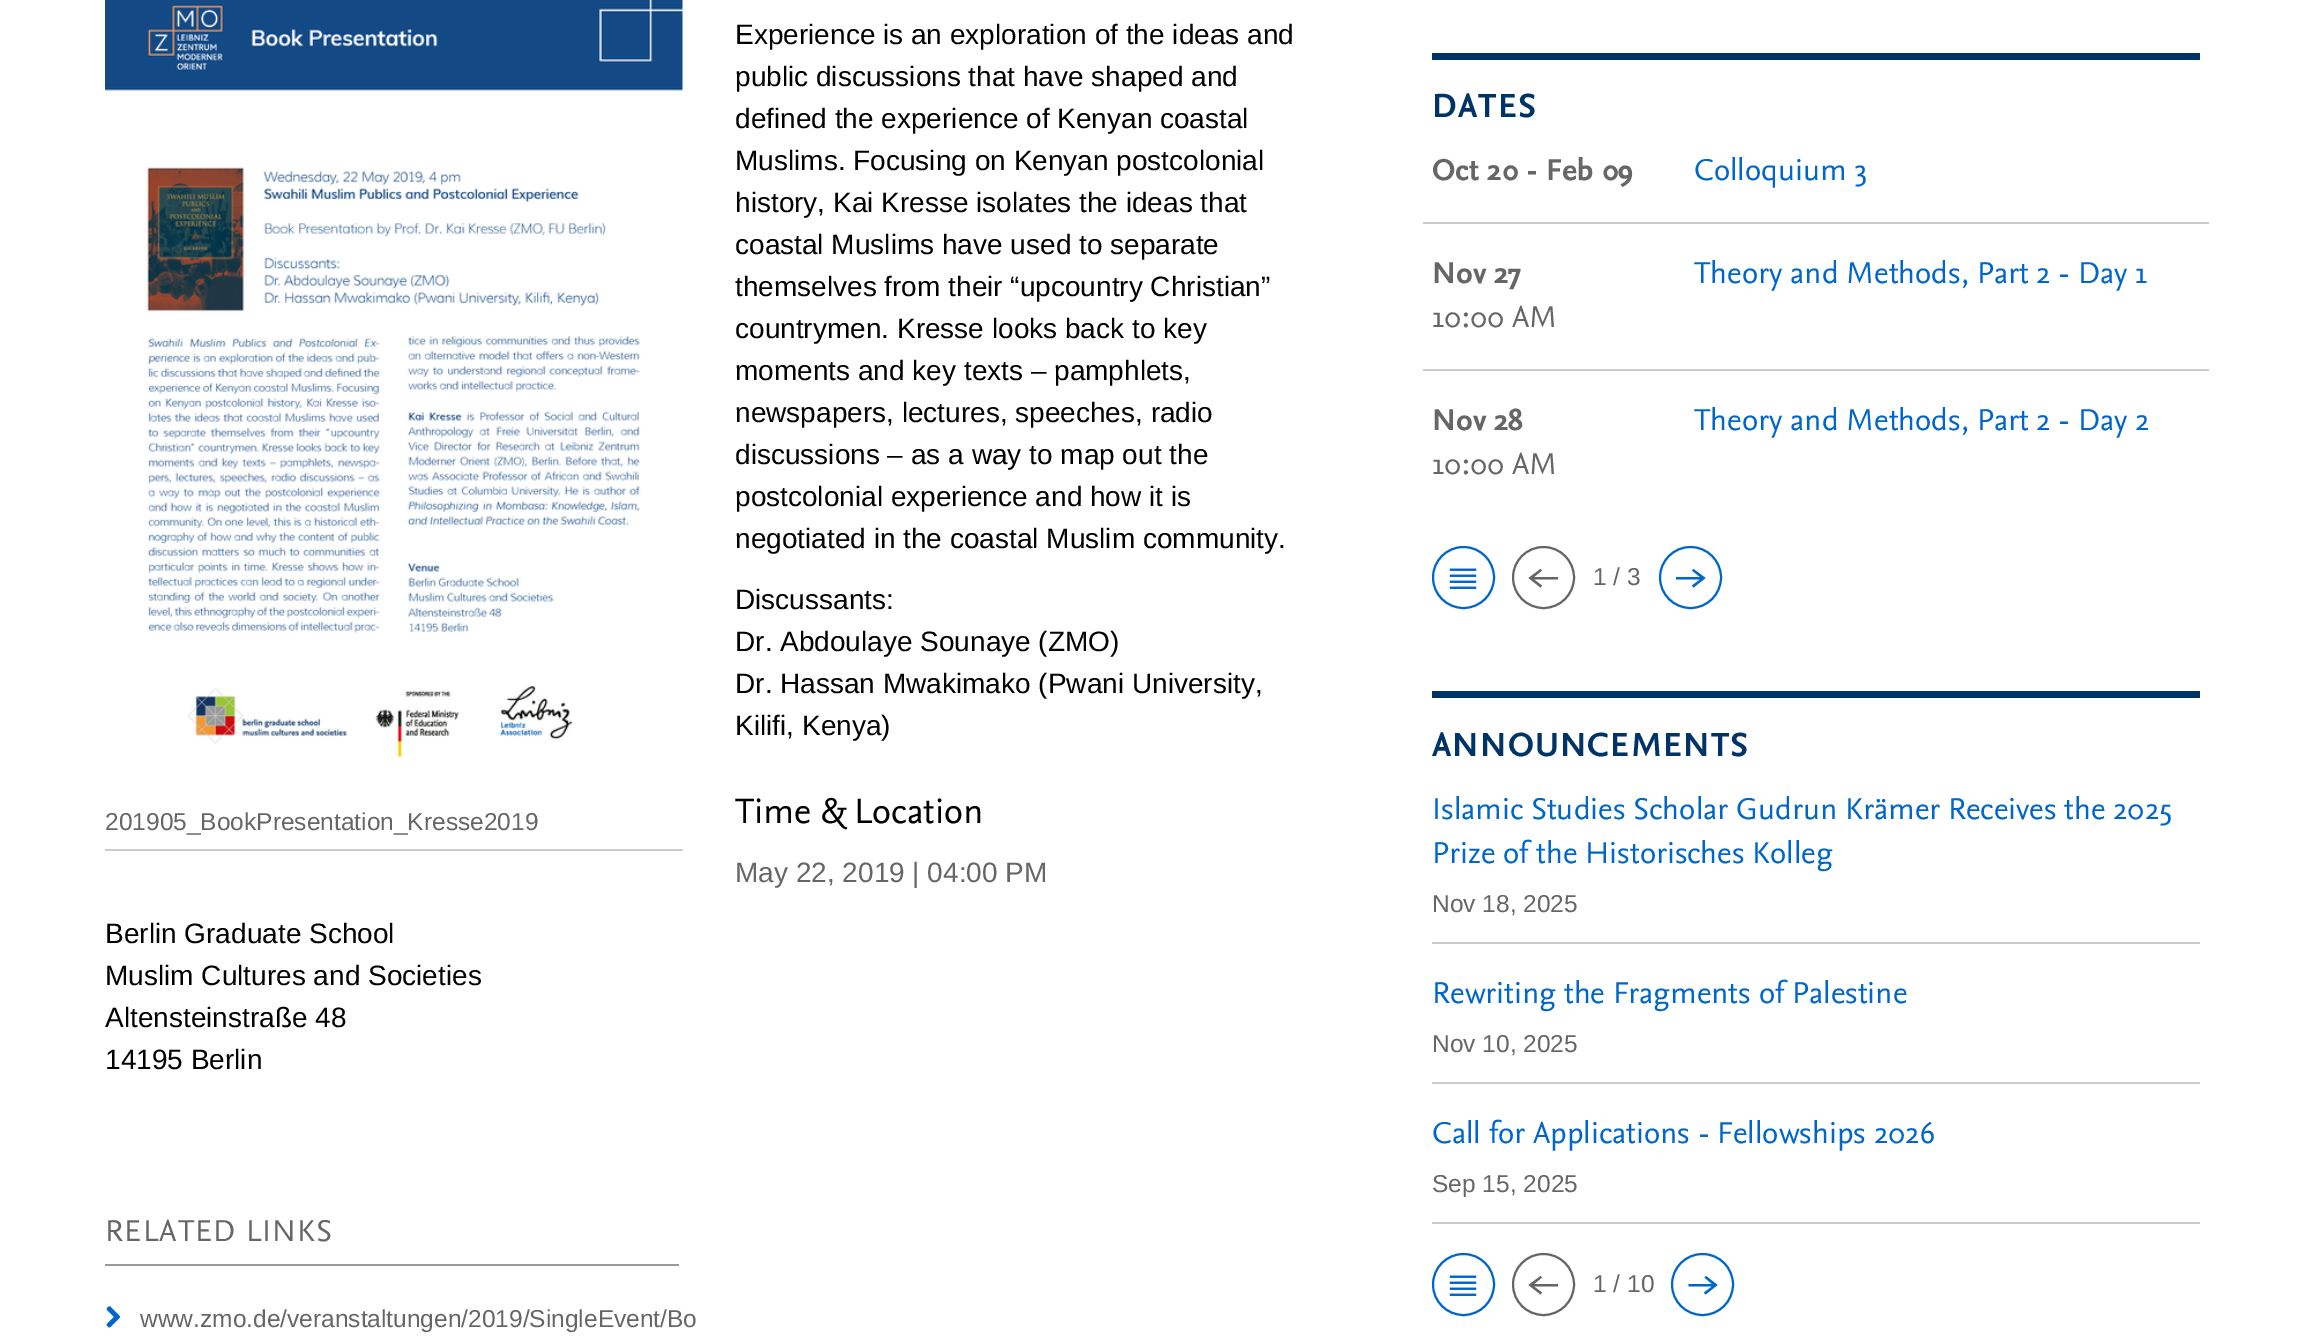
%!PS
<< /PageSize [2304 1343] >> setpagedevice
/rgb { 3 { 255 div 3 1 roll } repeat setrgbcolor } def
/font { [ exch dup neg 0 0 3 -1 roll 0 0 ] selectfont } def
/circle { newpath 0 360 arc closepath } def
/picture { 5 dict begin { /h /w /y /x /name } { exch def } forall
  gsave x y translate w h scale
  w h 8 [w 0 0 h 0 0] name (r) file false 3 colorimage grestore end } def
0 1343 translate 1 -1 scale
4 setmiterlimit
255 255 255 rgb
0 0 2304 1343 rectfill
(img/1.rgb) 105 0 578 758 picture
204 204 204 rgb
105 849 578 2 rectfill
153 153 153 rgb
105 1264 574 2 rectfill
(img/2.rgb) 106 1306 14 22 picture
[
  [1432 53 768 7 0 51 102]
  [1423 222 786 2 204 204 204]
  [1423 369 786 2 204 204 204]
] { aload pop rgb rectfill } forall
0 102 204 rgb
2 setlinewidth
1463.5 577.5 30.5 circle stroke
(img/3.rgb) 1449 568 28 21 picture
102 102 102 rgb
1543.5 577.5 30.5 circle stroke
1558 577 moveto 1534 577 lineto 1542 570.5 lineto 1540.5 569 lineto 1528.5 578 lineto 1540.5 587.5 lineto 1542 585.5 lineto 1534 579.5 lineto 1558 579.5 lineto closepath fill
0 102 204 rgb
1690.5 577.5 30.5 circle stroke
1693.5 569 moveto 1692 570.5 lineto 1700 577 lineto 1676 577 lineto 1676 579.5 lineto 1700 579.5 lineto 1692 585.5 lineto 1693.5 587.5 lineto 1705.5 578 lineto closepath fill
[
  [1432 691 768 7 0 51 102]
  [1432 942 768 2 204 204 204]
  [1432 1082 768 2 204 204 204]
  [1432 1222 768 2 204 204 204]
] { aload pop rgb rectfill } forall
0 102 204 rgb
1463.5 1284.5 30.5 circle stroke
(img/3.rgb) 1449 1275 28 21 picture
102 102 102 rgb
1543.5 1284.5 30.5 circle stroke
1558 1284 moveto 1534 1284 lineto 1542 1277.5 lineto 1540.5 1276 lineto 1528.5 1285 lineto 1540.5 1294.5 lineto 1542 1292.5 lineto 1534 1286.5 lineto 1558 1286.5 lineto closepath fill
0 102 204 rgb
1702.5 1284.5 30.5 circle stroke
1706 1276 moveto 1704.5 1277.5 lineto 1712 1284 lineto 1688.5 1284 lineto 1688.5 1286.5 lineto 1712 1286.5 lineto 1704 1292.5 lineto 1705.5 1294.5 lineto 1717.5 1285 lineto closepath fill
/LiberationSans-Regular 28 font
0 0 0 rgb
[
  [(Experience is an exploration of the ideas and) 735 44]
  [(public discussions that have shaped and) 735 86]
  [(defined the experience of Kenyan coastal) 735 128]
  [(Muslims. Focusing on Kenyan postcolonial) 735 170]
  [(history, Kai Kresse isolates the ideas that) 735 212]
  [(coastal Muslims have used to separate) 735 254]
  [(themselves from their “upcountry Christian”) 735 296]
  [(countrymen. Kresse looks back to key) 735 338]
  [(moments and key texts – pamphlets,) 735 380]
  [(newspapers, lectures, speeches, radio) 735 422]
  [(discussions – as a way to map out the) 735 464]
  [(postcolonial experience and how it is) 735 506]
  [(negotiated in the coastal Muslim community.) 735 548]
  [(Discussants:) 735 609]
  [(Dr. Abdoulaye Sounaye \(ZMO\)) 735 651]
  [(Dr. Hassan Mwakimako \(Pwani University,) 735 693]
  [(Kilifi, Kenya\)) 735 735]
] { aload pop moveto show } forall
/LiberationSans-Regular 24.5 font
102 102 102 rgb
105 830 moveto (201905_BookPresentation_Kresse2019) show
/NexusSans-Regular 36.75 font
0 0 0 rgb
735 823 moveto (Time & Location) show
/LiberationSans-Regular 28 font
102 102 102 rgb
735 882 moveto (May 22, 2019 | 04:00 PM) show
0 0 0 rgb
[
  [(Berlin Graduate School) 105 943]
  [(Muslim Cultures and Societies) 105 985]
  [(Altensteinstraße 48) 105 1027]
  [(14195 Berlin) 105 1069]
] { aload pop moveto show } forall
/NexusSans-Regular 31.5 font
102 102 102 rgb
105 1241 moveto 1.1 0 (RELATED LINKS) ashow
/LiberationSans-Regular 24.5 font
140 1327 moveto (www.zmo.de/veranstaltungen/2019/SingleEvent/Bo) show
/NexusSans-Bold 35 font
0 51 102 rgb
1432 117 moveto 1.25 0 (DATES) ashow
/NexusSans-Bold 31.5 font
102 102 102 rgb
1432 180 moveto (Oct 20 - Feb 09) show
/NexusSans-Regular 31.5 font
0 102 204 rgb
1694 180 moveto (Colloquium 3) show
/NexusSans-Bold 31.5 font
102 102 102 rgb
1432 283 moveto (Nov 27) show
/NexusSans-Regular 31.5 font
1432 327 moveto (10:00 AM) show
0 102 204 rgb
1694 283 moveto (Theory and Methods, Part 2 - Day 1) show
/NexusSans-Bold 31.5 font
102 102 102 rgb
1432 430 moveto (Nov 28) show
/NexusSans-Regular 31.5 font
1432 474 moveto (10:00 AM) show
0 102 204 rgb
1694 430 moveto (Theory and Methods, Part 2 - Day 2) show
/LiberationSans-Regular 24.5 font
102 102 102 rgb
1593 585 moveto (1 / 3) show
/NexusSans-Bold 35 font
0 51 102 rgb
1432 756 moveto 1.25 0 (ANNOUNCEMENTS) ashow
/NexusSans-Regular 31.5 font
0 102 204 rgb
1432 819 moveto (Islamic Studies Scholar Gudrun Krämer Receives the 2025) show
1432 863 moveto (Prize of the Historisches Kolleg) show
/LiberationSans-Regular 24.5 font
102 102 102 rgb
1432 912 moveto (Nov 18, 2025) show
/NexusSans-Regular 31.5 font
0 102 204 rgb
1432 1003 moveto (Rewriting the Fragments of Palestine) show
/LiberationSans-Regular 24.5 font
102 102 102 rgb
1432 1052 moveto (Nov 10, 2025) show
/NexusSans-Regular 31.5 font
0 102 204 rgb
1432 1143 moveto (Call for Applications - Fellowships 2026) show
/LiberationSans-Regular 24.5 font
102 102 102 rgb
1432 1192 moveto (Sep 15, 2025) show
1593 1292 moveto (1 / 10) show
showpage
